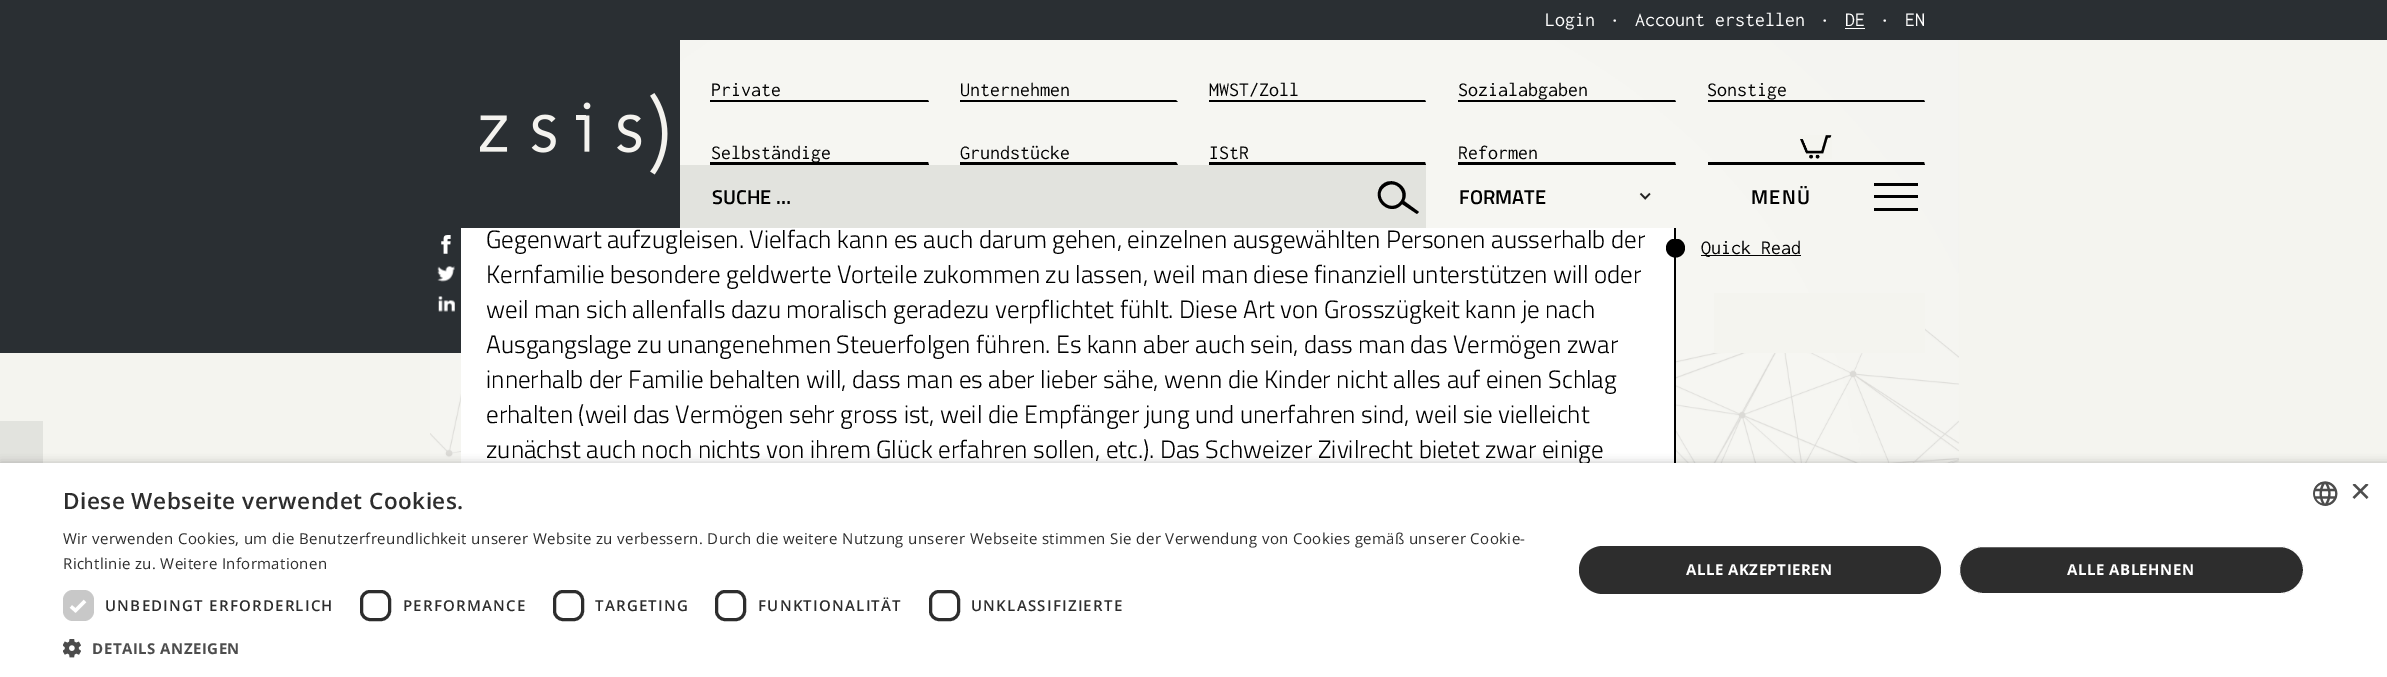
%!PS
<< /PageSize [2387 677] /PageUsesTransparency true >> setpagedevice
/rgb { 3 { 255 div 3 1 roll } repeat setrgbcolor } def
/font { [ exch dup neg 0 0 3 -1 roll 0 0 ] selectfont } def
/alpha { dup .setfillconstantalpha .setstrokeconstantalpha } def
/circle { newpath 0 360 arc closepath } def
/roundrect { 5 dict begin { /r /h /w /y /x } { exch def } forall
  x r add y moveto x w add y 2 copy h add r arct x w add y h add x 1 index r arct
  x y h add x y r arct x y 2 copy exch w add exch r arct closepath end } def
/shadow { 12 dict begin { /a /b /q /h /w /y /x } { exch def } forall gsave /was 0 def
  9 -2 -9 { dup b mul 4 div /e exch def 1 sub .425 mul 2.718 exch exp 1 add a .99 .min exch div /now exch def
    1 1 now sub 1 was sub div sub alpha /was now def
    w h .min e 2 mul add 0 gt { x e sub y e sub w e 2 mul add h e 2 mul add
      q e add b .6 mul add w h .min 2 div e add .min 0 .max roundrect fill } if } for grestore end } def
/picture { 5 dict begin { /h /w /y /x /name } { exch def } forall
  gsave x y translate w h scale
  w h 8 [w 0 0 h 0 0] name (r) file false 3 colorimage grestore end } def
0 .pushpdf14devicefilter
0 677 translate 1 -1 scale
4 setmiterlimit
244 244 239 rgb
0 0 2387 677 rectfill
(img/1.rgb) 430 40 1529 423 picture
[
  [0 0 2387 40 42 47 51]
  [1845 28 20 1 255 255 255]
  [0 40 680 188 42 47 51]
] { aload pop rgb rectfill } forall
(img/2.rgb) 480 93 188 82 picture
0 0 0 rgb
929 102 moveto 710 102 lineto 710 100 lineto 928 100 lineto closepath fill
1178 102 moveto 960 102 lineto 960 100 lineto 1176 100 lineto closepath fill
1426 102 moveto 1209 102 lineto 1209 100 lineto 1425 100 lineto closepath fill
1676 102 moveto 1458 102 lineto 1458 100 lineto 1675 100 lineto closepath fill
1925 102 moveto 1708 102 lineto 1708 100 lineto 1924 100 lineto closepath fill
929 165 moveto 710 165 lineto 710 162 lineto 928 162 lineto closepath fill
1178 165 moveto 960 165 lineto 960 162 lineto 1176 162 lineto closepath fill
1426 165 moveto 1209 165 lineto 1209 162 lineto 1425 162 lineto closepath fill
1676 165 moveto 1458 165 lineto 1458 162 lineto 1675 162 lineto closepath fill
1925 165 moveto 1708 165 lineto 1708 162 lineto 1924 162 lineto closepath fill
(img/3.rgb) 1800 135 32 24 picture
226 227 222 rgb
680 165 746 63 rectfill
0 0 0 rgb
1419 212 moveto 1404 201 lineto 1412 187 1390 173 1380 187 curveto 1371 202 1392 217 1402 204 curveto 1417 214 lineto closepath 1398 204 moveto 1386 212 1373 193 1386 186 curveto 1398 179 1409 196 1398 204 curveto closepath fill
(img/4.rgb) 1639 192 12 8 picture
[
  [1874 183 44 3 0 0 0]
  [1874 195 44 3 0 0 0]
  [1874 208 44 3 0 0 0]
  [0 228 461 125 42 47 51]
] { aload pop rgb rectfill } forall
(img/5.rgb) 441 235 10 19 picture
(img/6.rgb) 437 266 18 16 picture
(img/7.rgb) 438 296 17 16 picture
[
  [1714 293 211 60 244 244 239]
  [0 421 43 42 226 227 222]
  [461 228 1213 235 255 255 255]
  [1674 228 2 235 0 0 0]
] { aload pop rgb rectfill } forall
gsave
1666 239 19 19 rectclip
1675.5 248 9.5 circle fill
grestore
1701 255 100 1 rectfill
1 465 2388 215 0 5 0.35 shadow
/Inconsolata-Regular 20 font
255 255 255 rgb
1545 26 moveto (Login) show
/Inconsolata-Regular 15 font
1611 25 moveto (•) show
/Inconsolata-Regular 20 font
1635 26 moveto (Account erstellen) show
/Inconsolata-Regular 15 font
1821 25 moveto (•) show
/Inconsolata-Regular 20 font
1845 26 moveto (DE) show
/Inconsolata-Regular 15 font
1881 25 moveto (•) show
/Inconsolata-Regular 20 font
1905 26 moveto (EN) show
0 0 0 rgb
[
  [(Private) 711 96]
  [(Unternehmen) 960 96]
  [(MWST/Zoll) 1209 96]
  [(Sozialabgaben) 1458 96]
  [(Sonstige) 1707 96]
  [(Selbständige) 711 159]
  [(Grundstücke) 960 159]
  [(IStR) 1209 159]
  [(Reformen) 1458 159]
] { aload pop moveto show } forall
/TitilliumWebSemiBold-SemiBold 20 font
712 204 moveto (SUCHE …) show
1459 204 moveto (FORMATE) show
1751 204 moveto 1.25 0 (MENÜ) ashow
/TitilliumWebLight-Light 25 font
[
  [(Gegenwart aufzugleisen. Vielfach kann es auch darum gehen, einzelnen ausgewählten Personen ausserhalb der) 486 248]
  [(Kernfamilie besondere geldwerte Vorteile zukommen zu lassen, weil man diese finanziell unterstützen will oder) 486 283]
  [(weil man sich allenfalls dazu moralisch geradezu verpflichtet fühlt. Diese Art von Grosszügkeit kann je nach) 486 318]
  [(Ausgangslage zu unangenehmen Steuerfolgen führen. Es kann aber auch sein, dass man das Vermögen zwar) 486 353]
  [(innerhalb der Familie behalten will, dass man es aber lieber sähe, wenn die Kinder nicht alles auf einen Schlag) 486 388]
  [(erhalten \(weil das Vermögen sehr gross ist, weil die Empfänger jung und unerfahren sind, weil sie vielleicht) 486 423]
  [(zunächst auch noch nichts von ihrem Glück erfahren sollen, etc.\). Das Schweizer Zivilrecht bietet zwar einige) 486 458]
] { aload pop moveto show } forall
/Inconsolata-Regular 20 font
1701 254 moveto (Quick Read) show
255 255 255 rgb
0 463 2387 214 rectfill
/OpenSans-SemiBold 22.5 font
45 45 45 rgb
63 509 moveto 0.5 0 (Diese Webseite verwendet Cookies.) ashow
/OpenSans-Regular 15 font
63 544 moveto 0.38 0 (Wir verwenden Cookies, um die Benutzerfreundlichkeit unserer Website zu verbessern. Durch die weitere Nutzung unserer Webseite stimmen Sie der Verwendung von Cookies gemäß unserer Cookie-) ashow
63 569 moveto 0.38 0 (Richtlinie zu. Weitere Informationen) ashow
200 200 200 rgb
63 590 31 31 10 roundrect fill
255 255 255 rgb
3.3 setlinewidth
71 606.5 moveto 75.5 610.5 lineto 85 601 lineto stroke
/OpenSans-SemiBold 15 font
45 45 45 rgb
105 611 moveto 1.25 0 (UNBEDINGT ERFORDERLICH) ashow
3 setlinewidth
361.5 591.5 28 28 8.5 roundrect stroke
403 611 moveto 1.25 0 (PERFORMANCE) ashow
554.5 591.5 28 28 8.5 roundrect stroke
595 611 moveto 1.25 0 (TARGETING) ashow
716.5 591.5 28 28 8.5 roundrect stroke
758 611 moveto 1.25 0 (FUNKTIONALITÄT) ashow
930.5 591.5 28 28 8.5 roundrect stroke
971 611 moveto 1.25 0 (UNKLASSIFIZIERTE) ashow
(img/8.rgb) 63 639 18 19 picture
/OpenSans-Bold 15 font
77 77 77 rgb
92 654 moveto 0.5 0 (DETAILS ANZEIGEN) ashow
45 45 45 rgb
1579 546 362 48 24 roundrect fill
255 255 255 rgb
1686 575 moveto 0.5 0 (ALLE AKZEPTIEREN) ashow
45 45 45 rgb
1959.5 546.5 344 47 23.5 roundrect gsave fill grestore
255 255 255 rgb
1 setlinewidth
stroke
2067 575 moveto 0.5 0 (ALLE ABLEHNEN) ashow
(img/9.rgb) 2313 481 25 25 picture
gsave
2350 484 19 19 rectclip
/LiberationSans-Regular 36 font
77 77 77 rgb
2350 503 moveto (×) show
grestore
.poppdf14devicefilter showpage
